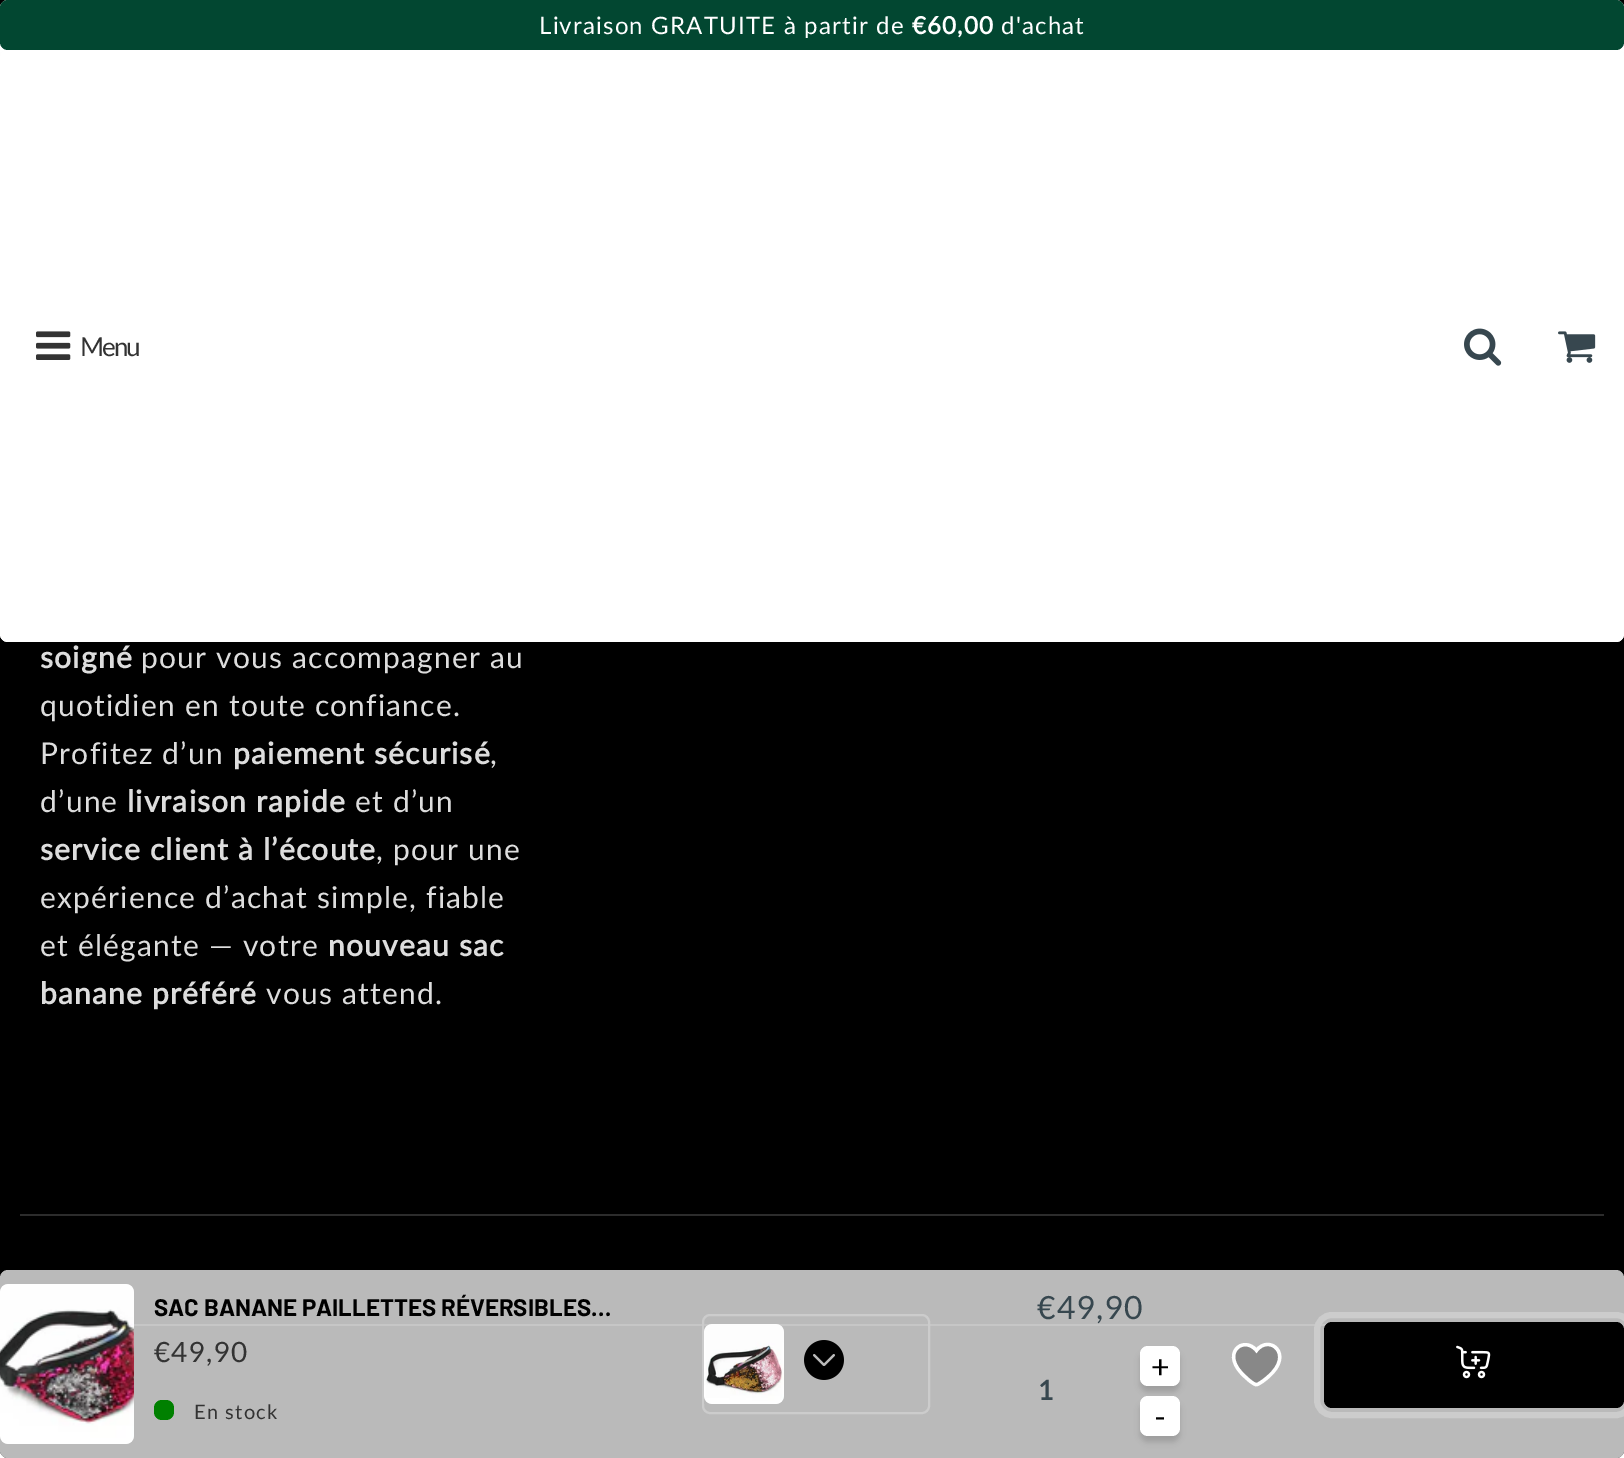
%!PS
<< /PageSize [1624 1458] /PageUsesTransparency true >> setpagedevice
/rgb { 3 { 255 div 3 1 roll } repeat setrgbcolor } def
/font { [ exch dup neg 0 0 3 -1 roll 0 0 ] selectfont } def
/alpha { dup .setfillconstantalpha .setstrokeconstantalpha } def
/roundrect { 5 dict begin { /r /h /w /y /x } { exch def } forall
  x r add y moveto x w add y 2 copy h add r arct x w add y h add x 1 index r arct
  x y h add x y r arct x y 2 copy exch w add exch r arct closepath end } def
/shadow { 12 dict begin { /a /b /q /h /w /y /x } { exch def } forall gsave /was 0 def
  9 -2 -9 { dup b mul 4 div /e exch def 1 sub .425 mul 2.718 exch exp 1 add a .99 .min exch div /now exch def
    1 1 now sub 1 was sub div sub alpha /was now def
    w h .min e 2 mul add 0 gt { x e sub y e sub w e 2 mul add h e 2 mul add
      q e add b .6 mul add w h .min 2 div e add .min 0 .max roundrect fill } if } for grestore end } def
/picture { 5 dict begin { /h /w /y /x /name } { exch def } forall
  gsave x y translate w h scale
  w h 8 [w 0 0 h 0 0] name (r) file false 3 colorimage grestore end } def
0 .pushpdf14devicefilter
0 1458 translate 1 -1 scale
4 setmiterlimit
255 255 255 rgb
0 0 1624 1458 rectfill
0 0 0 rgb
0 -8 1624 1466 8 roundrect fill
255 255 255 rgb
0 0 1624 642 8 roundrect fill
0 0 0 rgb
0 54 1624 592 8 2 0.1 shadow
2 71 49 rgb
0 0 1624 50 8 roundrect fill
255 255 255 rgb
0 50 1624 592 8 roundrect fill
(img/1.rgb) 36 331 35 29 picture
(img/2.rgb) 1464 328 38 38 picture
(img/3.rgb) 1558 331 38 32 picture
44 44 44 rgb
20 1214 1584 2 rectfill
134 1324 1193 2 rectfill
0.73 alpha
255 255 255 rgb
0 1270 1624 188 8 roundrect fill
1 alpha
241 241 241 rgb
0 1284 134 160 8 roundrect fill
(img/4.rgb) 0 1284 134 160 picture
0 128 0 rgb
154 1400 20 20 8 roundrect fill
204 204 204 rgb
2 setlinewidth
703 1315 226 98 7 roundrect stroke
241 241 241 rgb
704 1324 80 80 8 roundrect fill
(img/5.rgb) 704 1324 80 80 picture
(img/6.rgb) 804 1340 40 40 picture
0 0 0 rgb
1140 1352 40 40 8 3 0.15 shadow
255 255 255 rgb
1140 1346 40 40 8 roundrect fill
0 0 0 rgb
1140 1402 40 40 8 3 0.15 shadow
255 255 255 rgb
1140 1396 40 40 8 roundrect fill
136 136 136 rgb
1257 1385 moveto 1254 1385 1248 1379 1246 1378 curveto 1218 1354 1244 1335 1257 1350 curveto 1269 1334 1295 1354 1268 1377 curveto 1267 1378 1259 1385 1257 1385 curveto closepath fill
255 255 255 rgb
3.3 setlinewidth
1256.5 1384.5 moveto 1254 1385 1247.5 1379 1246 1377.5 curveto 1218.5 1354 1243.5 1334.5 1256.5 1350.5 curveto 1269 1334 1294.5 1354 1268.5 1376.5 curveto 1266.5 1378.5 1259 1384.5 1256.5 1384.5 curveto closepath stroke
0 0 0 rgb
1324 1322 300 86 8 roundrect fill
204 204 204 rgb
6 setlinewidth
1317 1315 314 100 15 roundrect stroke
(img/7.rgb) 1456 1345 35 34 picture
/Lato-Regular 24 font
255 255 255 rgb
539 34 moveto 1.2 0 (Livraison GRATUITE à partir de) ashow
/Lato-Bold 24 font
912 34 moveto 1.2 0 (€60,00) ashow
/Lato-Regular 24 font
1001 34 moveto 1.2 0 (d'achat) ashow
/Lato-Regular 26 font
51 51 51 rgb
80 356 moveto -2 0 (Menu) ashow
/Lato-Bold 30 font
221 221 221 rgb
40 668 moveto 1.2 0 (soigné) ashow
/Lato-Regular 30 font
141 668 moveto 1.2 0 (pour vous accompagner au) ashow
40 716 moveto 1.2 0 (quotidien en toute confiance.) ashow
40 764 moveto 1.2 0 (Profitez d’un) ashow
/Lato-Bold 30 font
233 764 moveto 1.2 0 (paiement sécurisé) ashow
/Lato-Regular 30 font
490 764 moveto 1.2 0 (,) ashow
40 812 moveto 1.2 0 (d’une) ashow
/Lato-Bold 30 font
127 812 moveto 1.2 0 (livraison rapide) ashow
/Lato-Regular 30 font
355 812 moveto 1.2 0 (et d’un) ashow
/Lato-Bold 30 font
40 860 moveto 1.2 0 (service client à l’écoute) ashow
/Lato-Regular 30 font
376 860 moveto 1.2 0 (, pour une) ashow
40 908 moveto 1.2 0 (expérience d’achat simple, fiable) ashow
40 956 moveto 1.2 0 (et élégante — votre) ashow
/Lato-Bold 30 font
328 956 moveto 1.2 0 (nouveau sac) ashow
40 1004 moveto 1.2 0 (banane préféré) ashow
/Lato-Regular 30 font
266 1004 moveto 1.2 0 (vous attend.) ashow
/Barlow-Bold 24 font
0 0 0 rgb
154 1316 moveto (SAC BANANE PAILLETTES RÉVERSIBLES…) show
/Lato-Regular 28 font
51 51 51 rgb
154 1362 moveto 1.2 0 (€49,90) ashow
/Lato-Regular 20 font
194 1419 moveto 1.2 0 (En stock) ashow
/Lato-Regular 32 font
55 71 79 rgb
1037 1319 moveto 1.2 0 (€49,90) ashow
/Lato-Bold 27 font
1038 1400 moveto (1) show
/Lato-Regular 32 font
0 0 0 rgb
1151 1378 moveto (+) show
1154 1428 moveto (-) show
.poppdf14devicefilter showpage
